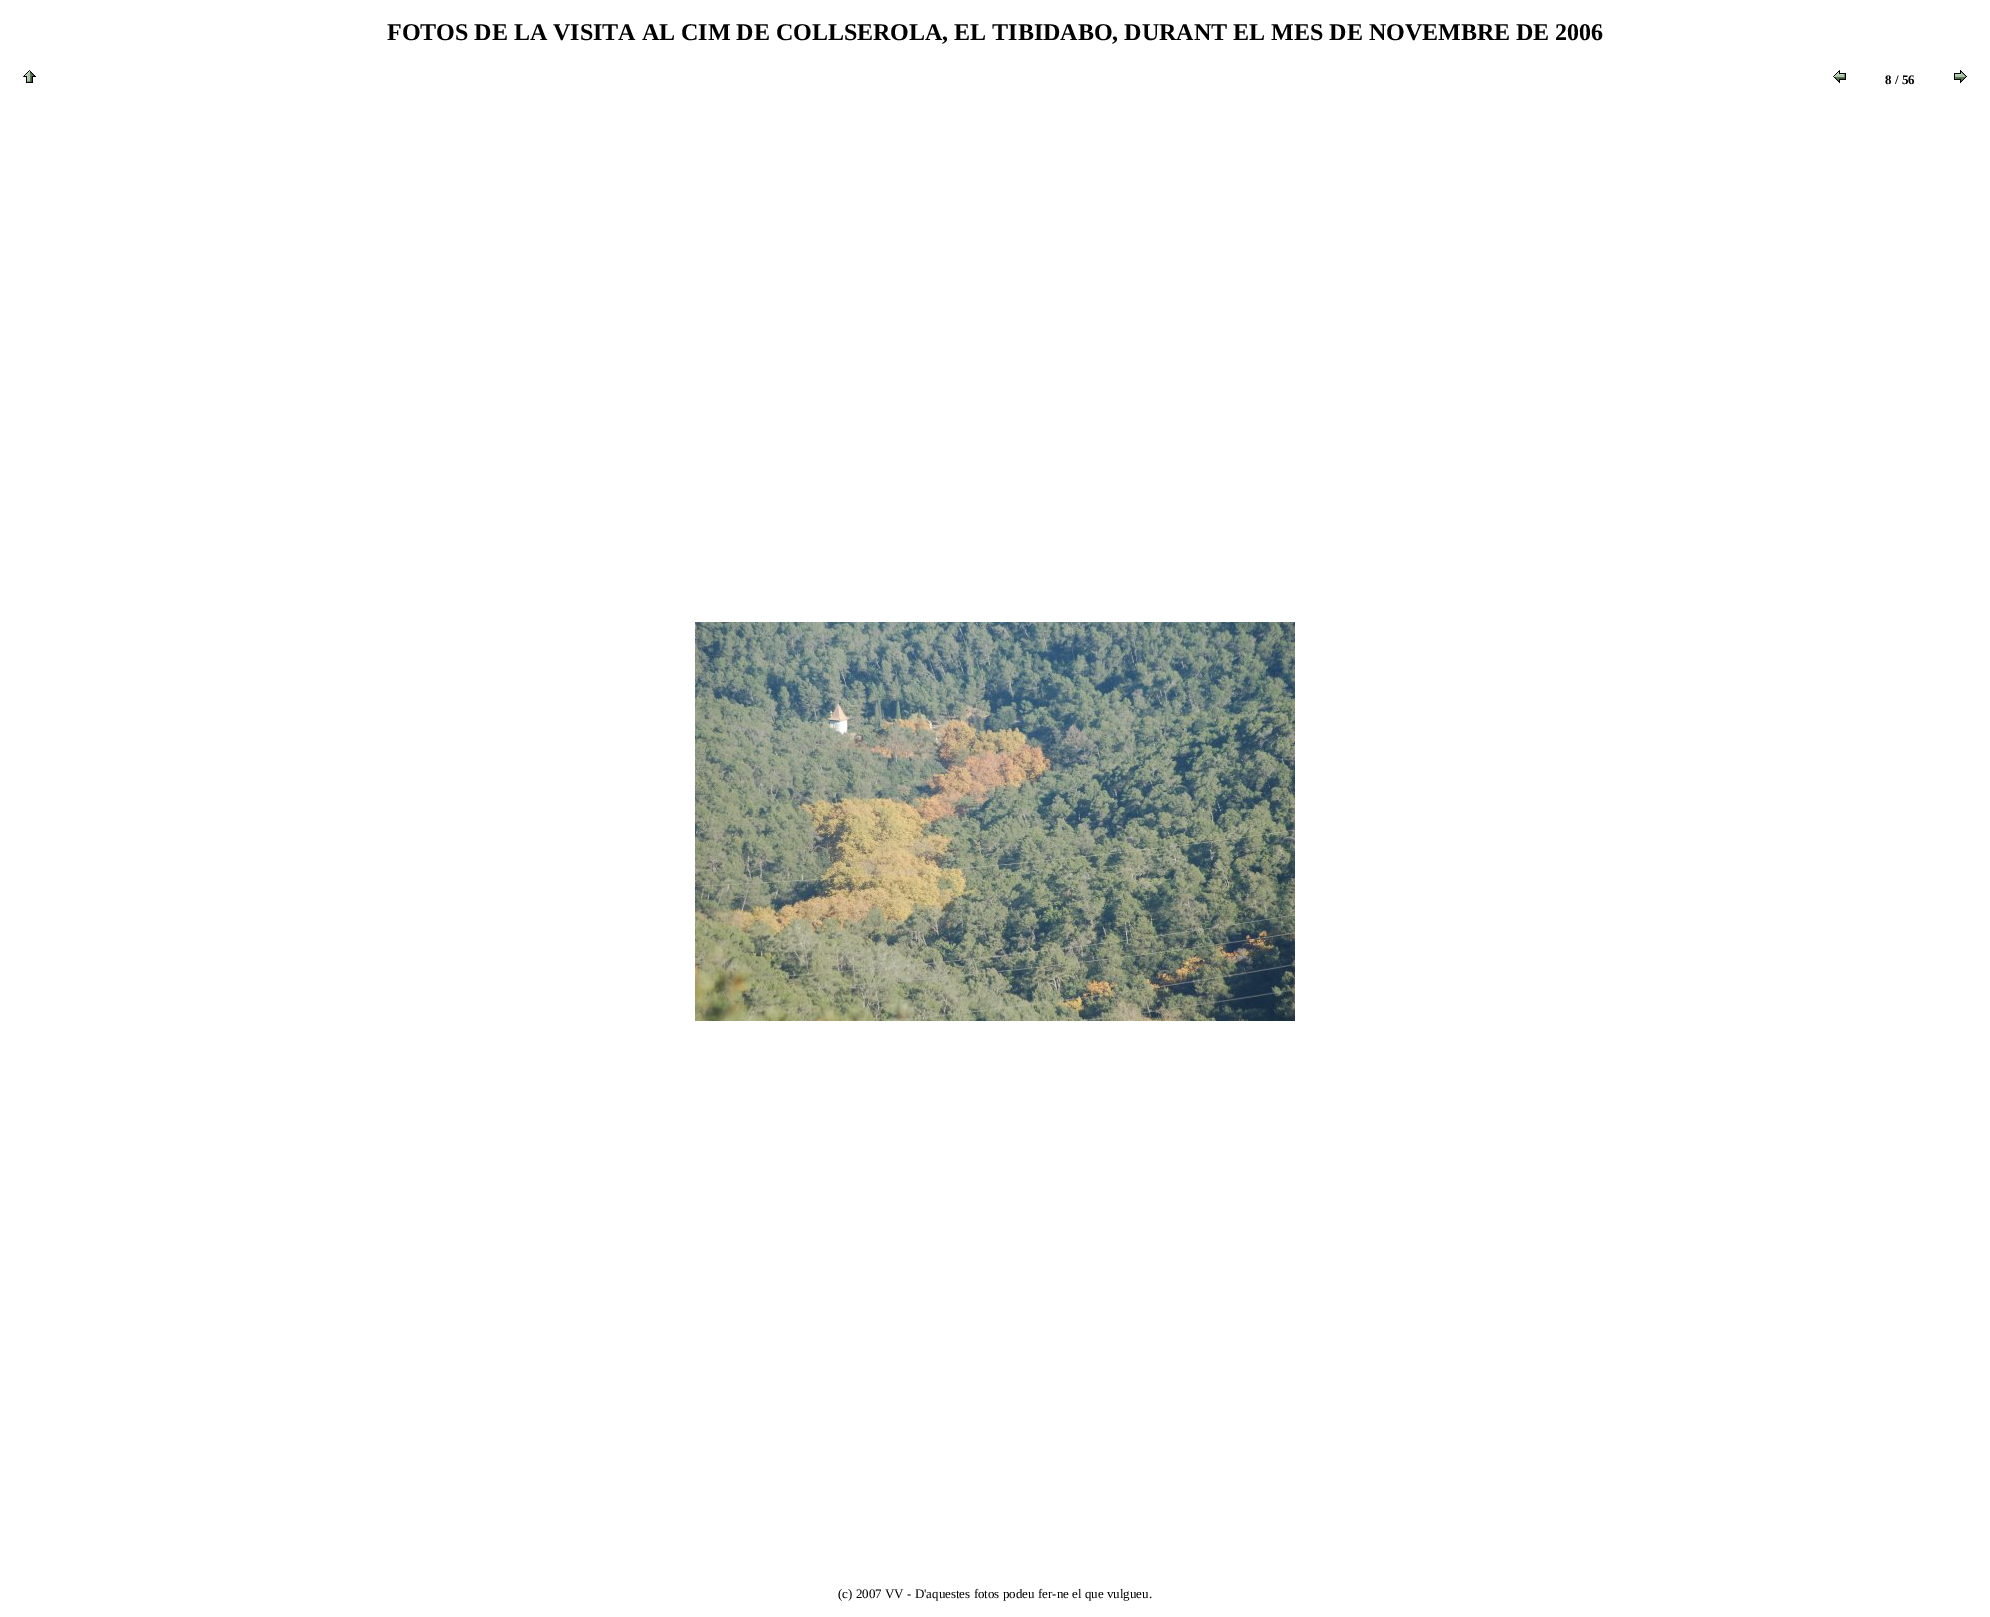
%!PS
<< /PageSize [1990 1617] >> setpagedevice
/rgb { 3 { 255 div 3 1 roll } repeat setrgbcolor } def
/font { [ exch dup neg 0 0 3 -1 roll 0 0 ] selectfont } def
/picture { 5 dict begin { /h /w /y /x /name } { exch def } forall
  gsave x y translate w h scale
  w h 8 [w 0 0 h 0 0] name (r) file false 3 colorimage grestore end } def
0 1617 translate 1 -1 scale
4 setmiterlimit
255 255 255 rgb
0 0 1990 1617 rectfill
(img/1.rgb) 23 70 13 13 picture
(img/2.rgb) 1833 70 13 13 picture
(img/3.rgb) 1954 70 13 13 picture
(img/4.rgb) 695 622 600 399 picture
/LiberationSerif-Bold 24 font
0 0 0 rgb
387 40 moveto (FOTOS DE LA VISITA AL CIM DE COLLSEROLA, EL TIBIDABO, DURANT EL MES DE NOVEMBRE DE 2006) show
/LiberationSerif-Bold 13 font
1885 84 moveto (8 / 56) show
/LiberationSerif-Regular 13 font
838 1598 moveto (\(c\) 2007 VV - D'aquestes fotos podeu fer-ne el que vulgueu.) show
showpage
